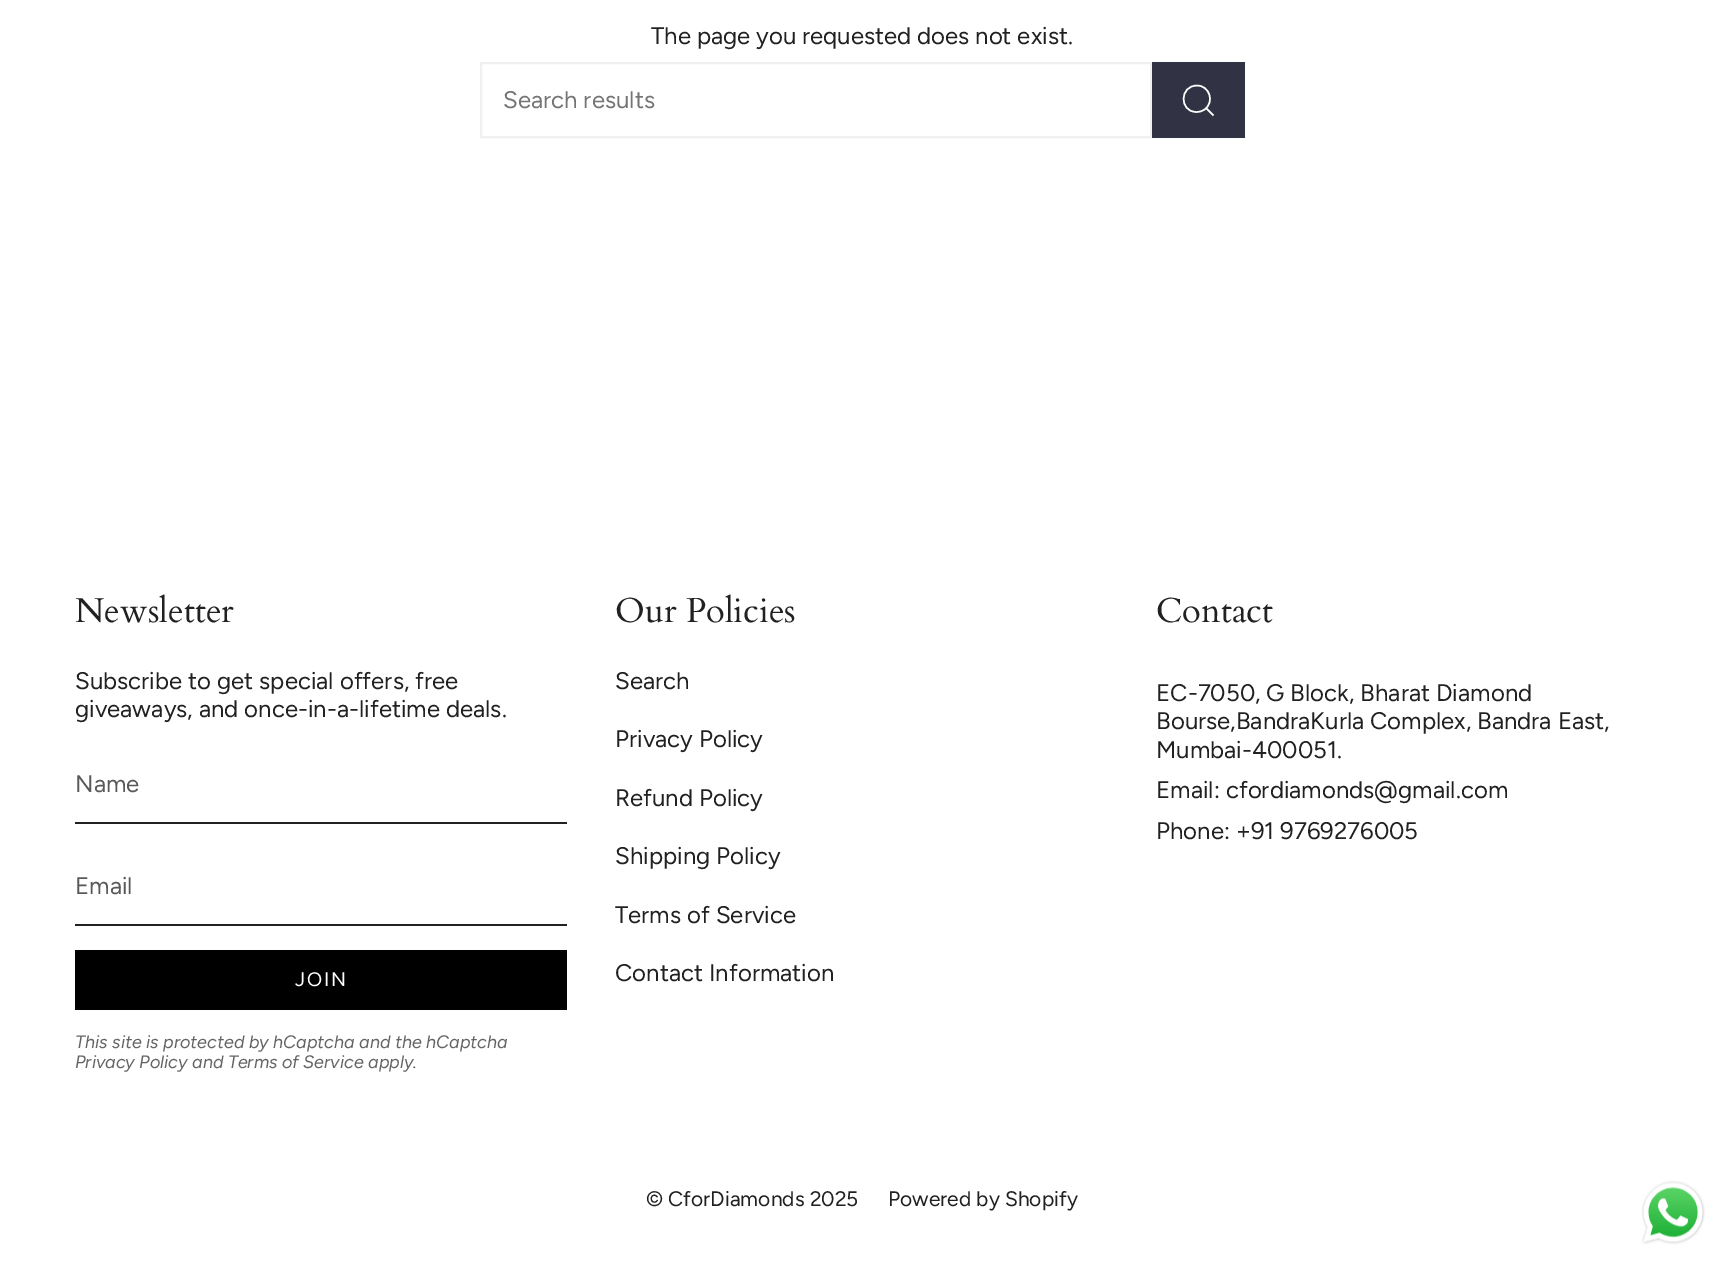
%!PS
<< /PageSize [1723 1262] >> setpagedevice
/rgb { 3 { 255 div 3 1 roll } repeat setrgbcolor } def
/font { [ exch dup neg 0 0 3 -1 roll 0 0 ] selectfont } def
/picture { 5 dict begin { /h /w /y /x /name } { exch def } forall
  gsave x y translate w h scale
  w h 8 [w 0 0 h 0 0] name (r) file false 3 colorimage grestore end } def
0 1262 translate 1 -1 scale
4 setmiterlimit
255 255 255 rgb
0 0 1723 1262 rectfill
240 240 240 rgb
2 setlinewidth
481 63 670 74 rectstroke
49 50 67 rgb
1152 62 93 76 rectfill
255 255 255 rgb
1.5 setlinewidth
1197 85.5 moveto 1209.5 85.5 1215 102 1204.5 109.5 curveto 1202 111.5 1199 112 1196 112 curveto 1179 111.5 1179.5 85.5 1197 85.5 curveto closepath 1206 108 moveto 1213.5 115.5 lineto stroke
[
  [75 822 492 2 33 33 33]
  [75 924 492 2 33 33 33]
  [75 950 492 60 0 0 0]
] { aload pop rgb rectfill } forall
(img/1.rgb) 1641 1180 64 65 picture
/Figtree-Regular 24 font
33 33 33 rgb
651 44 moveto (The page you requested does not exist.) show
117 117 117 rgb
503 108 moveto (Search results) show
/Cardo-Regular 34.5 font
33 33 33 rgb
75 622 moveto (Newsletter) show
/Figtree-Regular 24 font
75 689 moveto (Subscribe to get special offers, free) show
75 717 moveto (giveaways, and once-in-a-lifetime deals.) show
89 89 89 rgb
75 792 moveto (Name) show
75 894 moveto (Email) show
/Figtree-Regular 19.5 font
255 255 255 rgb
295 986 moveto 2 0 (JOIN) ashow
/Figtree-Italic 18 font
100 100 100 rgb
75 1048 moveto (This site is protected by hCaptcha and the hCaptcha) show
75 1068 moveto (Privacy Policy and Terms of Service apply.) show
/Cardo-Regular 34.5 font
33 33 33 rgb
615 622 moveto (Our Policies) show
/Figtree-Regular 24 font
[
  [(Search) 615 689]
  [(Privacy Policy) 615 747]
  [(Refund Policy) 615 806]
  [(Shipping Policy) 615 864]
  [(Terms of Service) 615 923]
  [(Contact Information) 615 981]
] { aload pop moveto show } forall
/Cardo-Regular 34.5 font
1156 622 moveto (Contact) show
/Figtree-Regular 24 font
[
  [(EC-7050, G Block, Bharat Diamond) 1156 701]
  [(Bourse,BandraKurla Complex, Bandra East,) 1156 729]
  [(Mumbai-400051.) 1156 758]
  [(Email: cfordiamonds@gmail.com) 1156 798]
  [(Phone: +91 9769276005) 1156 839]
] { aload pop moveto show } forall
/Figtree-Regular 21 font
646 1206 moveto (© CforDiamonds 2025) show
888 1206 moveto (Powered by Shopify) show
showpage
